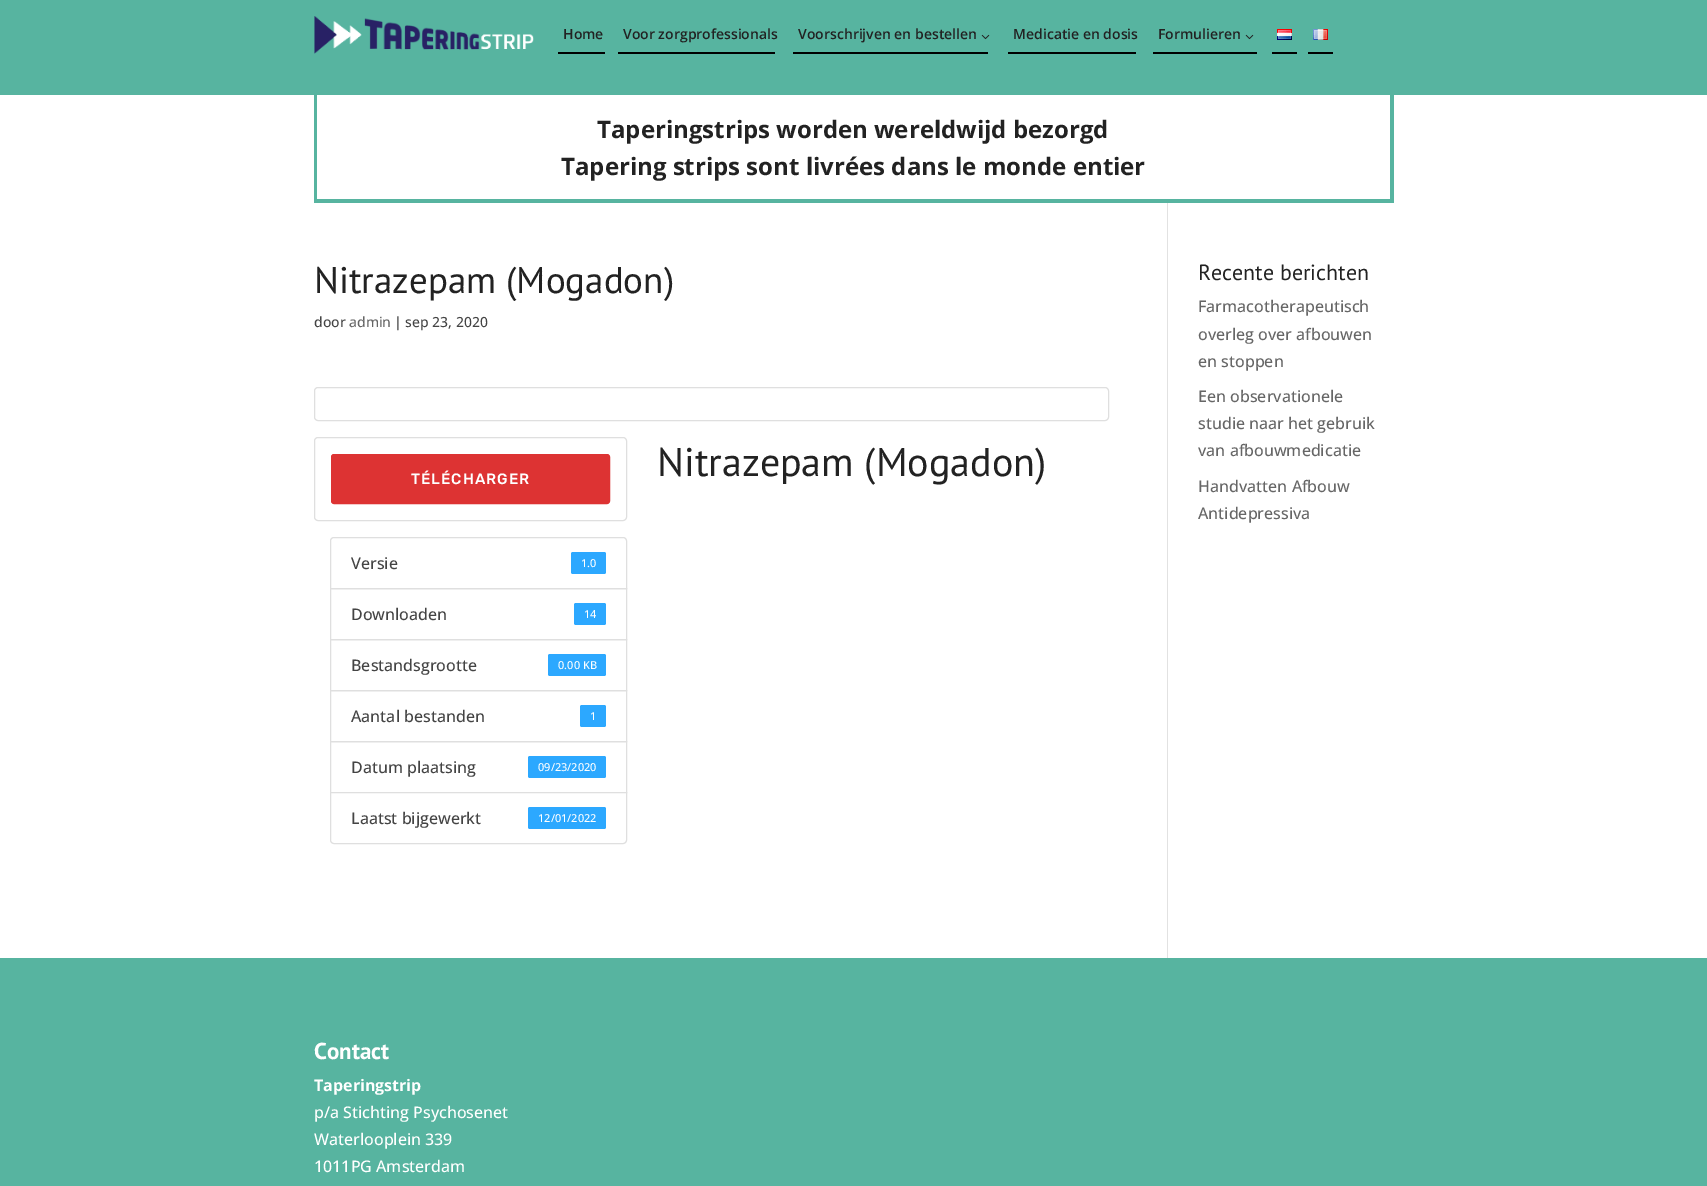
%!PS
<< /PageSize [1707 1186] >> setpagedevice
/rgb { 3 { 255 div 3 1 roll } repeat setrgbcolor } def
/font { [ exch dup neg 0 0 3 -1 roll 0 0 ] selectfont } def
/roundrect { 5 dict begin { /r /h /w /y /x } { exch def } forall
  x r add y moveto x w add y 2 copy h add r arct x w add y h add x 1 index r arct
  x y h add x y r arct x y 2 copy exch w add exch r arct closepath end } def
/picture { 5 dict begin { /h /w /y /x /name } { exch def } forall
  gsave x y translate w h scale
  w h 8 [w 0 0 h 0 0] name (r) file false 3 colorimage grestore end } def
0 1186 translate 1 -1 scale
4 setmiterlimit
255 255 255 rgb
0 0 1707 1186 rectfill
87 180 160 rgb
0 0 1707 95 rectfill
(img/1.rgb) 314 16 220 38 picture
0 0 0 rgb
558 52 47 2 rectfill
618 52 157 2 rectfill
(img/2.rgb) 981 34 9 6 picture
793 52 195 2 rectfill
1008 52 128 2 rectfill
(img/2.rgb) 1245 34 9 6 picture
1153 52 104 2 rectfill
(img/3.rgb) 1277 29 15 11 picture
1272 52 25 2 rectfill
(img/4.rgb) 1313 29 15 11 picture
[
  [1308 52 25 2 0 0 0]
  [1390 95 4 108 87 180 160]
  [314 199 1080 4 87 180 160]
  [314 95 3 108 87 180 160]
  [1167 203 1 755 226 226 226]
] { aload pop rgb rectfill } forall
223 223 223 rgb
314.5 387.5 794 33 3.5 roundrect stroke
314.5 437.5 312 83 3.5 roundrect stroke
221 51 51 rgb
331.5 454.5 278 49 2.5 roundrect gsave fill grestore
stroke
223 223 223 rgb
334 537.5 moveto 623 537.5 lineto 625 537.5 626.5 539 626.5 541 curveto 626.5 588.5 lineto 330.5 588.5 lineto 330.5 541 lineto 330.5 539 332 537.5 334 537.5 curveto closepath stroke
44 168 255 rgb
571 552 35 22 2 roundrect fill
223 223 223 rgb
330.5 588.5 296 51 rectstroke
44 168 255 rgb
574 603 32 22 2 roundrect fill
223 223 223 rgb
330.5 639.5 296 51 rectstroke
44 168 255 rgb
548 654 58 22 2 roundrect fill
223 223 223 rgb
330.5 690.5 296 51 rectstroke
44 168 255 rgb
580 705 26 22 2 roundrect fill
223 223 223 rgb
330.5 741.5 296 51 rectstroke
44 168 255 rgb
528 756 78 22 2 roundrect fill
255 255 255 rgb
330.5 792.5 moveto 626.5 792.5 lineto 626.5 840 lineto 626.5 842 625 843.5 623 843.5 curveto 334 843.5 lineto 332 843.5 330.5 842 330.5 840 curveto closepath gsave fill grestore
223 223 223 rgb
stroke
44 168 255 rgb
528 807 78 22 2 roundrect fill
87 180 160 rgb
0 958 1707 228 rectfill
/OpenSans-SemiBold 14 font
34 34 34 rgb
[
  [(Home) 563 39]
  [(Voor zorgprofessionals) 623 39]
  [(Voorschrijven en bestellen) 798 39]
  [(Medicatie en dosis) 1013 39]
  [(Formulieren) 1158 39]
] { aload pop moveto show } forall
/OpenSans-Bold 24 font
597 138 moveto (Taperingstrips worden wereldwijd bezorgd) show
561 175 moveto (Tapering strips sont livrées dans le monde entier) show
/PTSans-Regular 37 font
314 293 moveto (Nitrazepam \(Mogadon\)) show
/OpenSans-Medium 14 font
68 68 68 rgb
314 327 moveto (door) show
102 102 102 rgb
349 327 moveto (admin) show
68 68 68 rgb
394 327 moveto (| sep 23, 2020) show
/PTSans-Regular 40 font
34 34 34 rgb
657 476 moveto (Nitrazepam \(Mogadon\)) show
/Rubik-Medium 15 font
255 255 255 rgb
411 484 moveto 1 0 (TÉLÉCHARGER) ashow
/OpenSans-Medium 16 font
68 68 68 rgb
351 569 moveto (Versie) show
/OpenSans-Medium 11 font
255 255 255 rgb
581 567 moveto (1.0) show
/OpenSans-Medium 16 font
68 68 68 rgb
351 620 moveto (Downloaden) show
/OpenSans-Medium 11 font
255 255 255 rgb
584 618 moveto (14) show
/OpenSans-Medium 16 font
68 68 68 rgb
351 671 moveto (Bestandsgrootte) show
/OpenSans-Medium 11 font
255 255 255 rgb
558 669 moveto (0.00 KB) show
/OpenSans-Medium 16 font
68 68 68 rgb
351 722 moveto (Aantal bestanden) show
/OpenSans-Medium 11 font
255 255 255 rgb
590 720 moveto (1) show
/OpenSans-Medium 16 font
68 68 68 rgb
351 773 moveto (Datum plaatsing) show
/OpenSans-Medium 11 font
255 255 255 rgb
538 771 moveto (09/23/2020) show
/OpenSans-Medium 16 font
68 68 68 rgb
351 824 moveto (Laatst bijgewerkt) show
/OpenSans-Medium 11 font
255 255 255 rgb
538 822 moveto (12/01/2022) show
/PTSans-Regular 22 font
34 34 34 rgb
1198 280 moveto (Recente berichten) show
/OpenSans-Medium 16 font
102 102 102 rgb
[
  [(Farmacotherapeutisch) 1198 312]
  [(overleg over afbouwen) 1198 340]
  [(en stoppen) 1198 367]
  [(Een observationele) 1198 402]
  [(studie naar het gebruik) 1198 429]
  [(van afbouwmedicatie) 1198 456]
  [(Handvatten Afbouw) 1198 492]
  [(Antidepressiva) 1198 519]
] { aload pop moveto show } forall
/PTSans-Bold 23 font
255 255 255 rgb
314 1059 moveto (Contact) show
/OpenSans-Bold 16 font
314 1091 moveto (Taperingstrip) show
/OpenSans-Medium 16 font
[
  [(p/a Stichting Psychosenet) 314 1118]
  [(Waterlooplein 339) 314 1145]
  [(1011PG Amsterdam) 314 1172]
] { aload pop moveto show } forall
showpage
